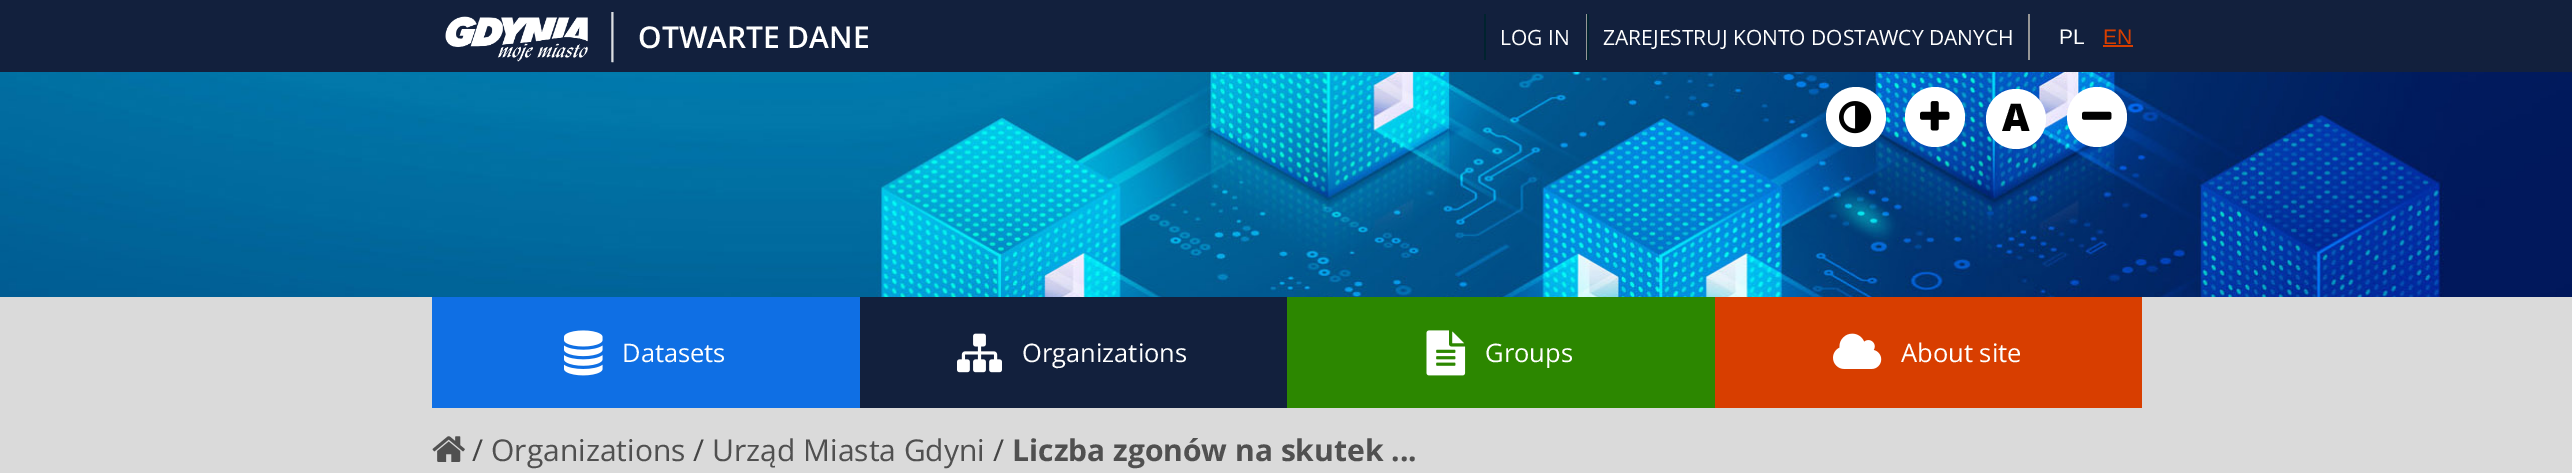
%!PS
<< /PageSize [2572 473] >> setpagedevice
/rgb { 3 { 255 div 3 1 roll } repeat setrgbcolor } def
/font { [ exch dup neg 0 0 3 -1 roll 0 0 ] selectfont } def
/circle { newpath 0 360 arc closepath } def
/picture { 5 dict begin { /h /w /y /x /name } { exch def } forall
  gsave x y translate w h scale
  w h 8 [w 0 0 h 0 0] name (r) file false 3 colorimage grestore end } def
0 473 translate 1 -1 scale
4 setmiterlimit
218 218 218 rgb
0 0 2572 473 rectfill
18 32 61 rgb
0 0 2572 72 rectfill
(img/1.rgb) 445 16 143 46 picture
[
  [1586 14 1 46 150 150 150]
  [1484 14 2 46 0 35 46]
  [2028 14 2 46 150 150 150]
  [1587 14 2 46 0 35 46]
  [2103 45 30 2 216 62 0]
] { aload pop rgb rectfill } forall
(img/2.rgb) 0 72 2572 225 picture
255 255 255 rgb
1856 117 30 circle fill
(img/3.rgb) 1839 101 33 33 picture
1935 117 30 circle fill
(img/4.rgb) 1920 101 30 30 picture
2016 119 30 circle fill
2097 117 30 circle fill
(img/5.rgb) 2082 111 30 9 picture
15 111 228 rgb
432 297 428 111 rectfill
(img/6.rgb) 564 330 39 46 picture
18 32 61 rgb
860 297 427 111 rectfill
(img/7.rgb) 957 333 45 40 picture
44 135 0 rgb
1287 297 428 111 rectfill
(img/8.rgb) 1426 330 40 46 picture
216 62 0 rgb
1715 297 427 111 rectfill
(img/9.rgb) 1833 333 49 36 picture
(img/10.rgb) 432 436 33 26 picture
/OpenSans-Light 50 font
219 222 226 rgb
599 50 moveto (|) show
/OpenSans-SemiBold 30 font
255 255 255 rgb
638 48 moveto (OTWARTE DANE) show
/OpenSans-Regular 21 font
1500 45 moveto (LOG IN) show
1603 45 moveto (ZAREJESTRUJ KONTO DOSTAWCY DANYCH) show
/LiberationSans-Regular 21 font
2059 44 moveto (PL) show
216 62 0 rgb
2103 44 moveto (EN) show
/OpenSans-ExtraBold 38 font
0 0 0 rgb
2002 131 moveto (A) show
/OpenSans-Regular 25.5 font
255 255 255 rgb
[
  [(Datasets) 622 362]
  [(Organizations) 1022 362]
  [(Groups) 1485 362]
  [(About site) 1901 362]
] { aload pop moveto show } forall
/OpenSans-Regular 30 font
68 68 68 rgb
472 461 moveto (/) show
80 80 80 rgb
491 461 moveto (Organizations) show
68 68 68 rgb
693 461 moveto (/) show
80 80 80 rgb
712 461 moveto (Urząd Miasta Gdyni) show
68 68 68 rgb
993 461 moveto (/) show
/OpenSans-Bold 30 font
80 80 80 rgb
1012 461 moveto (Liczba zgonów na skutek ...) show
showpage
